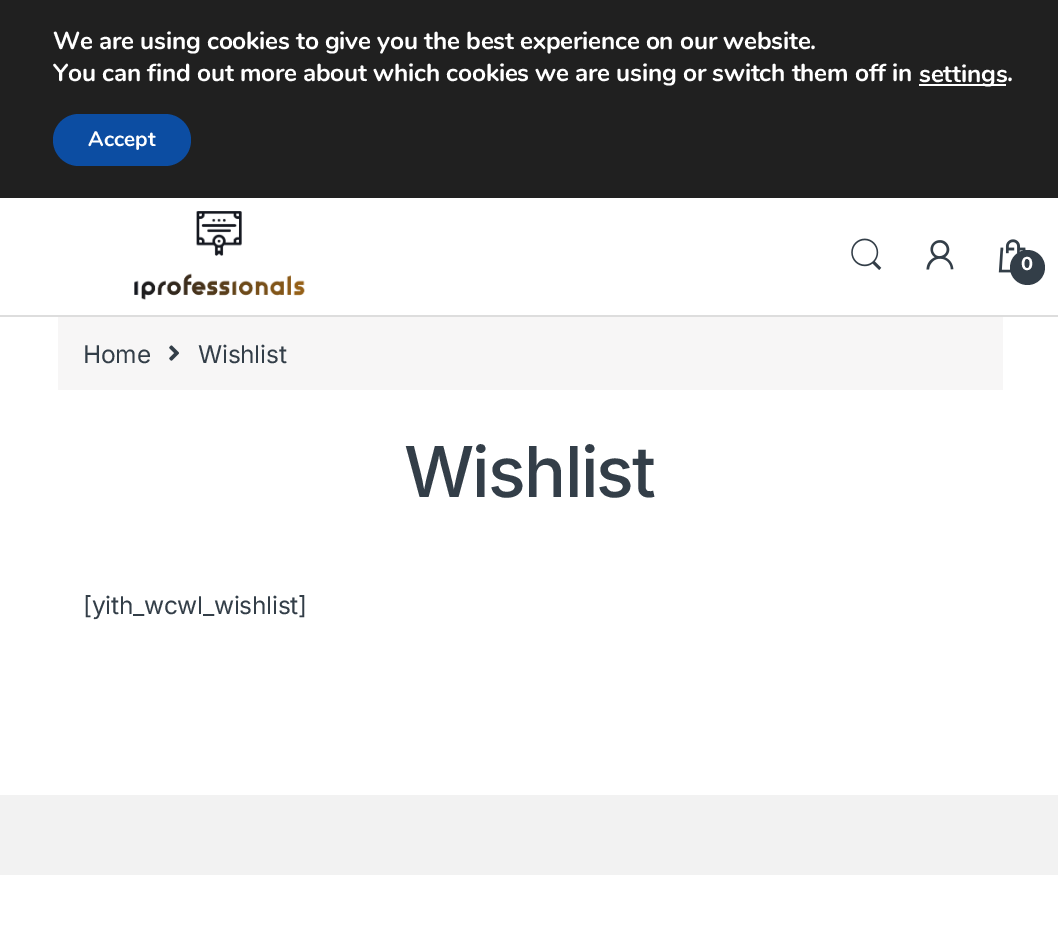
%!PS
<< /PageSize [1058 942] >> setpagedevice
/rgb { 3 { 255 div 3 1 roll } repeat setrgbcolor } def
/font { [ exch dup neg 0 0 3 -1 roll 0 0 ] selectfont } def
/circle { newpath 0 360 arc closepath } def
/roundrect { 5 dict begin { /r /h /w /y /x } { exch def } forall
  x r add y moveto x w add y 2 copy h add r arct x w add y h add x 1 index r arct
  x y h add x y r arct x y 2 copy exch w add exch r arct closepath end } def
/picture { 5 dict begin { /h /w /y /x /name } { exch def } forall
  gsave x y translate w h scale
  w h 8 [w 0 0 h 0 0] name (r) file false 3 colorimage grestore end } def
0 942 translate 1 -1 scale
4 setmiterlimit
255 255 255 rgb
0 0 1058 942 rectfill
32 32 32 rgb
0 0 1058 198 rectfill
255 255 255 rgb
919 84 87 2 rectfill
12 77 162 rgb
53 114 138 52 26 roundrect fill
221 221 221 rgb
0 315 1058 2 rectfill
(img/1.rgb) 134 211 171 89 picture
(img/2.rgb) 851 238 31 32 picture
(img/3.rgb) 926 240 28 30 picture
(img/4.rgb) 998 239 28 34 picture
51 62 72 rgb
1027.5 267.5 17.5 circle fill
247 246 246 rgb
58 317 945 73 rectfill
(img/5.rgb) 169 345 10 16 picture
242 242 242 rgb
0 795 1058 80 rectfill
/Nunito-Bold 24.5 font
255 255 255 rgb
53 49 moveto -0.25 0 (We are using cookies to give you the best experience on our website.) ashow
53 81 moveto -0.25 0 (You can find out more about which cookies we are using or switch them off in) ashow
919 82 moveto -0.25 0 (settings) ashow
1007 81 moveto -0.25 0 (.) ashow
/Nunito-Bold 21 font
88 146 moveto (Accept) show
/Inter-Bold 18 font
1021 270 moveto -0.25 0 (0) ashow
/Inter-Regular 24.5 font
51 62 72 rgb
83 363 moveto -0.25 0 (Home) ashow
198 363 moveto -0.25 0 (Wishlist) ashow
/Inter-Medium 70 font
404 497 moveto -1.75 0 (Wishlist) ashow
/Inter-Regular 24.5 font
83 614 moveto -0.25 0 ([yith_wcwl_wishlist]) ashow
showpage
